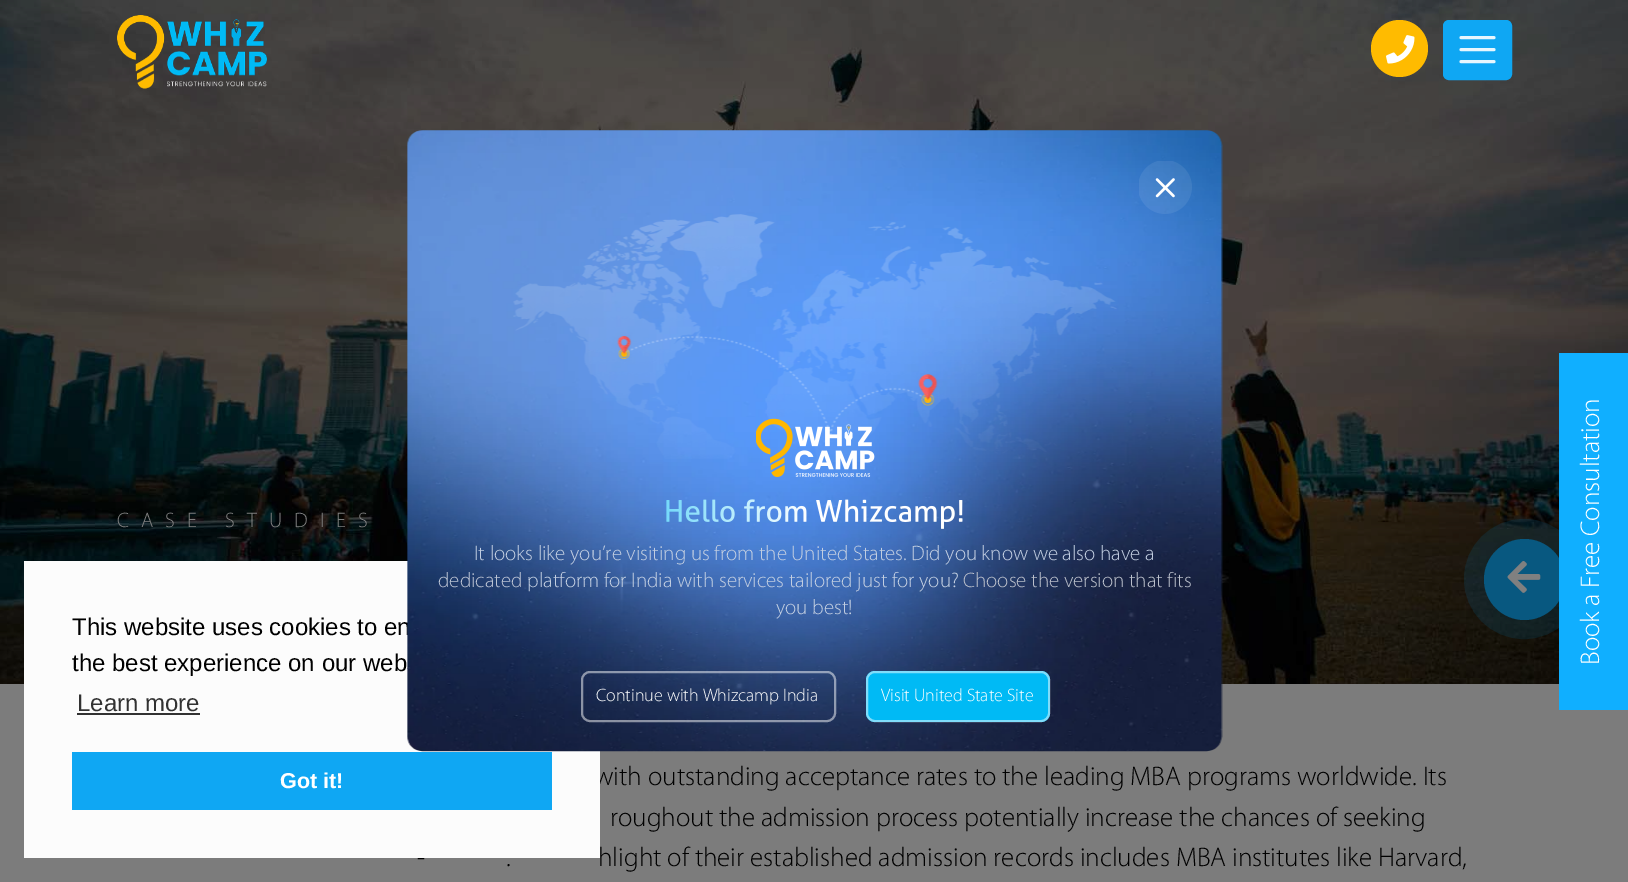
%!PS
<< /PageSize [1628 882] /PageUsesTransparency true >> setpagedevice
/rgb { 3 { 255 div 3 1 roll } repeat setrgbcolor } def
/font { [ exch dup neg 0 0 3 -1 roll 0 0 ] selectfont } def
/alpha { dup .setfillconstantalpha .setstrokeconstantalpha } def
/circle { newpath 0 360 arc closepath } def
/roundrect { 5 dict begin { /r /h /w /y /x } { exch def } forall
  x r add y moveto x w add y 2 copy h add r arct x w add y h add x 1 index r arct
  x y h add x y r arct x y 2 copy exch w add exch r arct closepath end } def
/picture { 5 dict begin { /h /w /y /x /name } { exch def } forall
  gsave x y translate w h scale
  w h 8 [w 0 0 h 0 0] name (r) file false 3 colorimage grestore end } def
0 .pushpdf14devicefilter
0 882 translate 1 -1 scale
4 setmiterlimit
124 124 124 rgb
0 0 1628 882 rectfill
(img/3.rgb) 0 0 1628 684 picture
(img/1.rgb) 117 15 150 74 picture
255 187 0 rgb
1399.5 48.5 28.5 circle fill
(img/2.rgb) 1386 35 29 29 picture
15 167 243 rgb
1444 21 67 58 5 roundrect gsave fill grestore
2 setlinewidth
stroke
231 246 254 rgb
3 setlinewidth
1 setlinecap
1461 37.5 moveto 1494 37.5 lineto 1461 49.5 moveto 1494 49.5 lineto 1461 61.5 moveto 1494 61.5 lineto stroke
8 88 128 rgb
1524.5 579.5 40.5 circle fill
0.22 alpha
20 setlinewidth
0 setlinecap
1524 579 50 circle stroke
1 alpha
(img/4.rgb) 1507 561 34 32 picture
16 175 255 rgb
1559 353 69 357 rectfill
/Myriad-Light 21 font
128 128 128 rgb
117 527 moveto 12 0 (CASE STUDIES) ashow
/Myriad-Light 27 font
255 255 255 rgb
gsave 1599 665 translate -90 rotate 0 0 moveto -0.5 0 32 (Book a Free Consultation) widthshow grestore
0 0 0 rgb
[
  [(with outstanding acceptance rates to the leading MBA programs worldwide. Its) 594 785]
  [(roughout the admission process potentially increase the chances of seeking) 610 826]
  [(-) 417 866]
  [(hlight of their established admission records includes MBA institutes like Harvard,) 598 866]
] { aload pop moveto show } forall
252 252 252 rgb
24 561 576 297 rectfill
/LiberationSans-Regular 24 font
0 0 0 rgb
72 635 moveto (This website uses cookies to en) show
(img/5.rgb) 407 130 816 622 picture
(img/7.rgb) 513 214 604 245 picture
(img/8.rgb) 756 418 119 59 picture
(img/6.rgb) 1139 161 53 53 picture
0 186 245 rgb
866 671 184 51 9 roundrect fill
0.5 alpha
255 255 255 rgb
2 setlinewidth
867 672 182 49 8 roundrect stroke
/Myriad-Light 18 font
1 alpha
881 701 moveto (Visit United State Site) show
0.5 alpha
582 672 253 49 8 roundrect stroke
1 alpha
596 701 moveto (Continue with Whizcamp India) show
/Myriad-Light 21 font
194 206 225 rgb
776 614 moveto (you best!) show
187 192 203 rgb
963 587 moveto (Choose the version that fits) show
194 206 225 rgb
527 587 moveto (platform for India with services tailored just for you?) show
188 196 212 rgb
438 587 moveto (dedicated) show
194 206 225 rgb
474 560 moveto (It looks like you’re visiting us from the United States. Did you know we also have a) show
(img/10.rgb) 816 499 147 30 picture
(img/9.rgb) 666 499 141 23 picture
/LiberationSans-Regular 24 font
50 50 50 rgb
77 711 moveto (Learn more) show
77 713 123 2 rectfill
15 167 243 rgb
72 752 480 58 rectfill
/LiberationSans-Bold 21.5 font
255 255 255 rgb
280 788 moveto (Got it!) show
/LiberationSans-Regular 24 font
0 0 0 rgb
72 671 moveto (the best experience on our web) show
/Myriad-Light 27 font
506 866 moveto (.) show
.poppdf14devicefilter showpage
